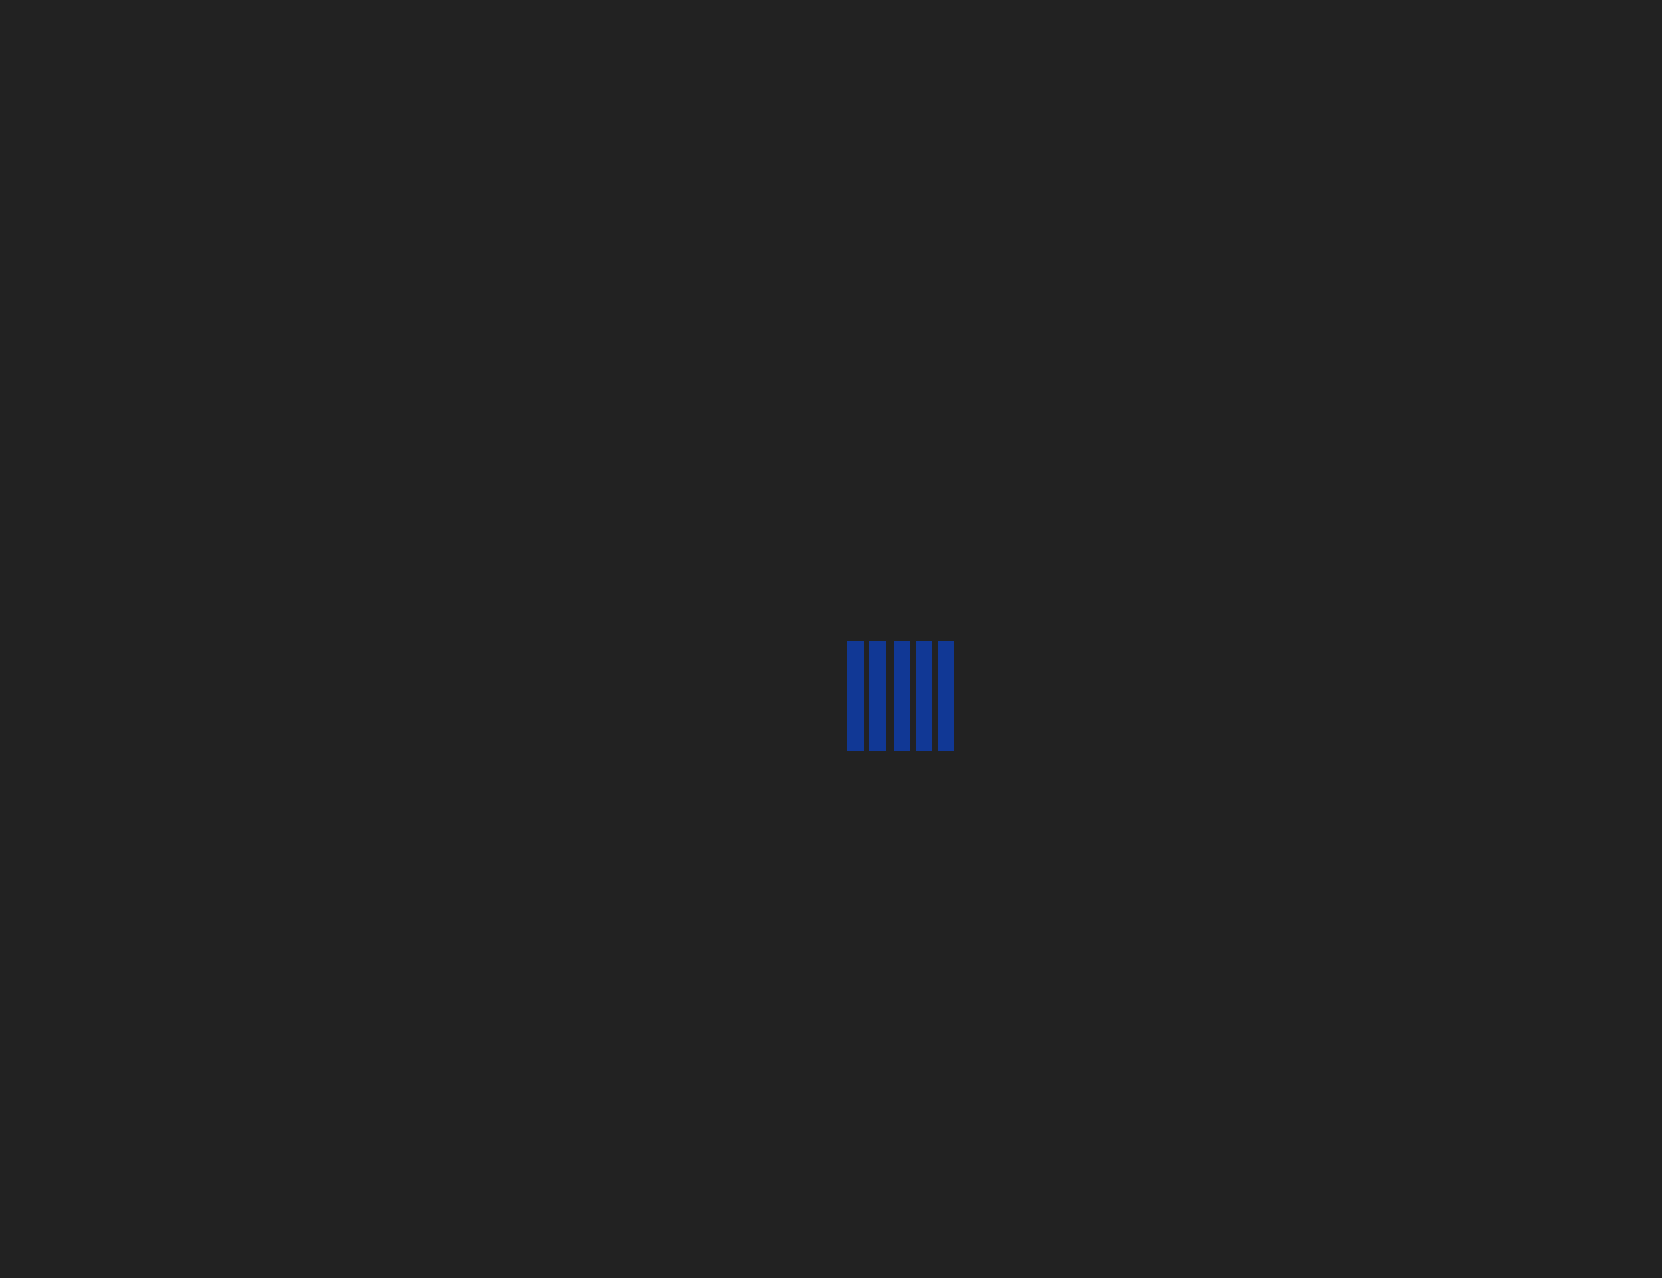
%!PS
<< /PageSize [1662 1278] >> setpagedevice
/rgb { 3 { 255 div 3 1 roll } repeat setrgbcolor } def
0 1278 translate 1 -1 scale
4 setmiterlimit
34 34 34 rgb
0 0 1662 1278 rectfill
[
  [847 641 17 110 17 56 149]
  [869 641 17 110 17 56 149]
  [894 641 16 110 17 56 149]
  [916 641 16 110 17 56 149]
  [938 641 16 110 17 56 149]
] { aload pop rgb rectfill } forall
showpage
